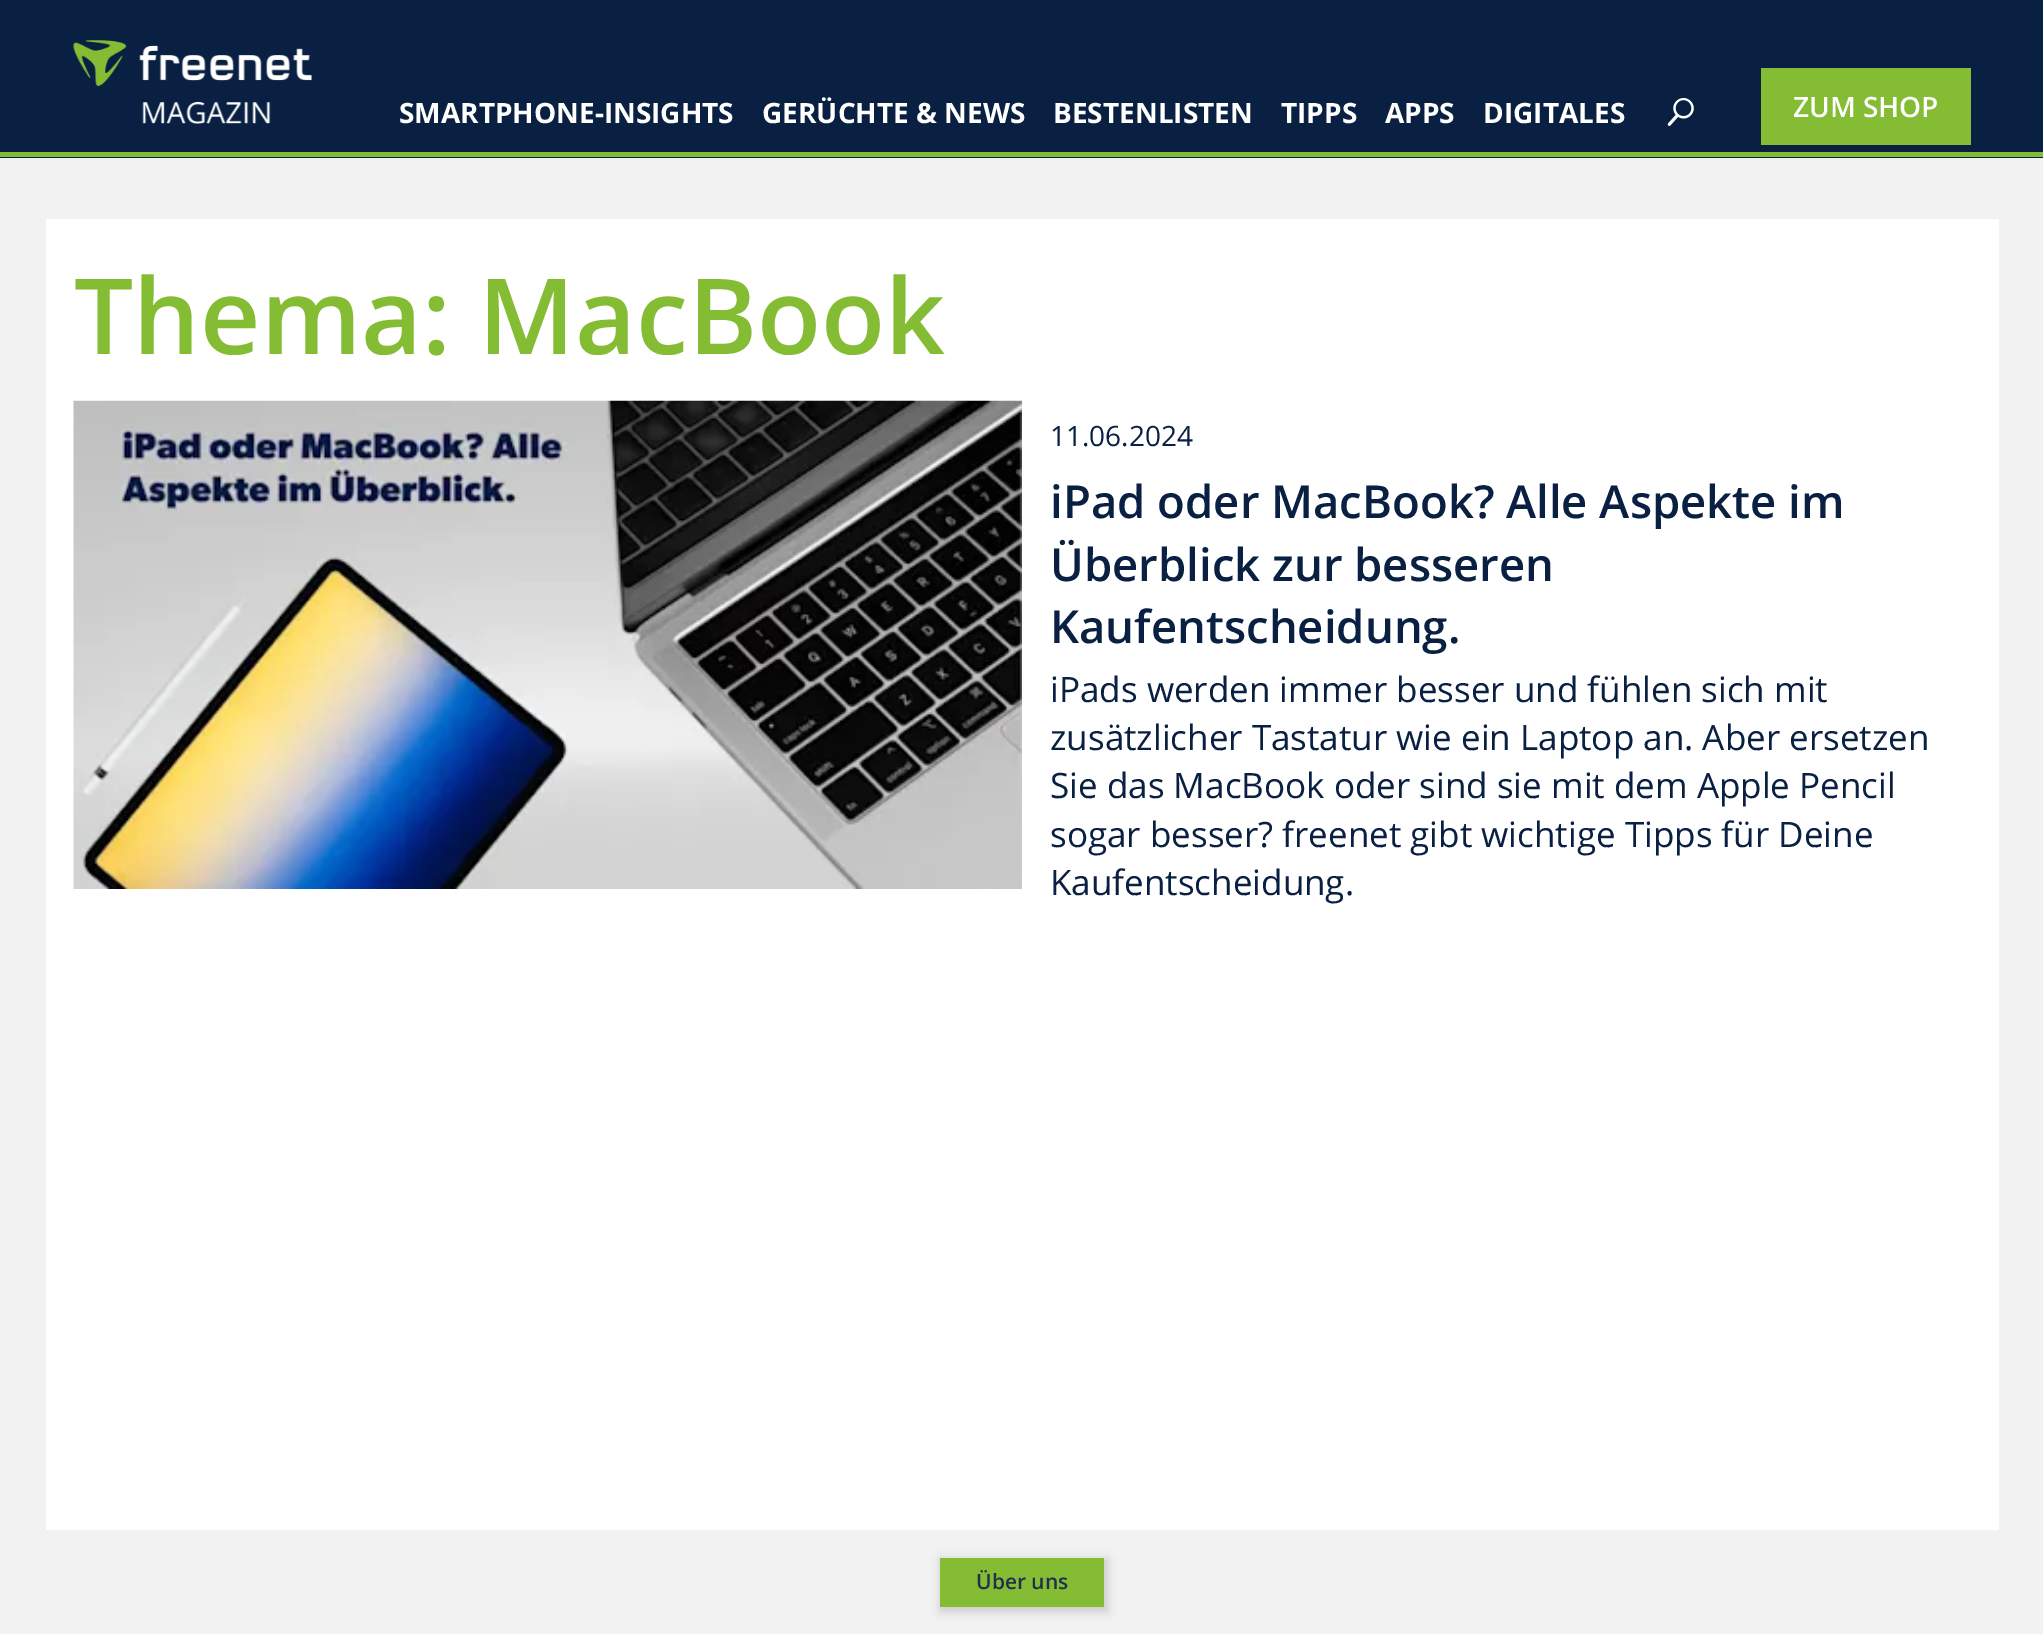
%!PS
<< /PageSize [2043 1634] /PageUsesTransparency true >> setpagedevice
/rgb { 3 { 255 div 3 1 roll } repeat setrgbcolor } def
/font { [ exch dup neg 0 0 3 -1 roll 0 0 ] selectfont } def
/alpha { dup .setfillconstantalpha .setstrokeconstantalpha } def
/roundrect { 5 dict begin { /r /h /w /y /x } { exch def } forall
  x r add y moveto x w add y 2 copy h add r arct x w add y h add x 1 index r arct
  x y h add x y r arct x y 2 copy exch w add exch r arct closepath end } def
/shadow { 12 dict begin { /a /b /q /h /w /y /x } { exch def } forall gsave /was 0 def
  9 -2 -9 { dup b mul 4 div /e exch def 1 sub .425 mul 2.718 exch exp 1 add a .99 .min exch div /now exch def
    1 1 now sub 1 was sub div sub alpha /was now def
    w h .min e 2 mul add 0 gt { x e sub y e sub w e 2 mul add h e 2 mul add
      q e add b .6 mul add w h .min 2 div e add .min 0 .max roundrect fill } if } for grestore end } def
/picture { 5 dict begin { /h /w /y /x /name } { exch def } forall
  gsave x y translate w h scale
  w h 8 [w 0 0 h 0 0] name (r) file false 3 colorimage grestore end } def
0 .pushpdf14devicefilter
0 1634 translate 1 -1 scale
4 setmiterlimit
242 242 242 rgb
0 0 2043 1634 rectfill
9 32 67 rgb
0 0 2043 158 rectfill
(img/1.rgb) 1667 98 27 28 picture
(img/2.rgb) 73 40 239 84 picture
[
  [1761 68 210 77 132 188 52]
  [0 152 2043 5 132 188 52]
  [46 219 1953 1311 255 255 255]
] { aload pop rgb rectfill } forall
(img/3.rgb) 73 400 949 489 picture
0 0 0 rgb
940 1559 168 53 0 4.5 0.15 shadow
132 188 52 rgb
940 1558 164 49 rectfill
/OpenSans-Bold 28 font
255 255 255 rgb
[
  [(SMARTPHONE-INSIGHTS) 399 123]
  [(GERÜCHTE & NEWS) 762 123]
  [(BESTENLISTEN) 1053 123]
  [(TIPPS) 1281 123]
  [(APPS) 1385 123]
  [(DIGITALES) 1483 123]
] { aload pop moveto show } forall
/OpenSans-SemiBold 28 font
1793 117 moveto (ZUM SHOP) show
/OpenSans-SemiBold 105 font
132 188 52 rgb
74 354 moveto (Thema: MacBook) show
/OpenSans-Regular 28 font
9 32 67 rgb
1050 446 moveto (11.06.2024) show
/OpenSans-SemiBold 45.5 font
[
  [(iPad oder MacBook? Alle Aspekte im) 1050 518]
  [(Überblick zur besseren) 1050 581]
  [(Kaufentscheidung.) 1050 643]
] { aload pop moveto show } forall
/OpenSans-Regular 35 font
[
  [(iPads werden immer besser und fühlen sich mit) 1050 702]
  [(zusätzlicher Tastatur wie ein Laptop an. Aber ersetzen) 1050 750]
  [(Sie das MacBook oder sind sie mit dem Apple Pencil) 1050 798]
  [(sogar besser? freenet gibt wichtige Tipps für Deine) 1050 847]
  [(Kaufentscheidung.) 1050 895]
] { aload pop moveto show } forall
/OpenSans-SemiBold 21 font
33 49 77 rgb
976 1589 moveto (Über uns) show
.poppdf14devicefilter showpage
